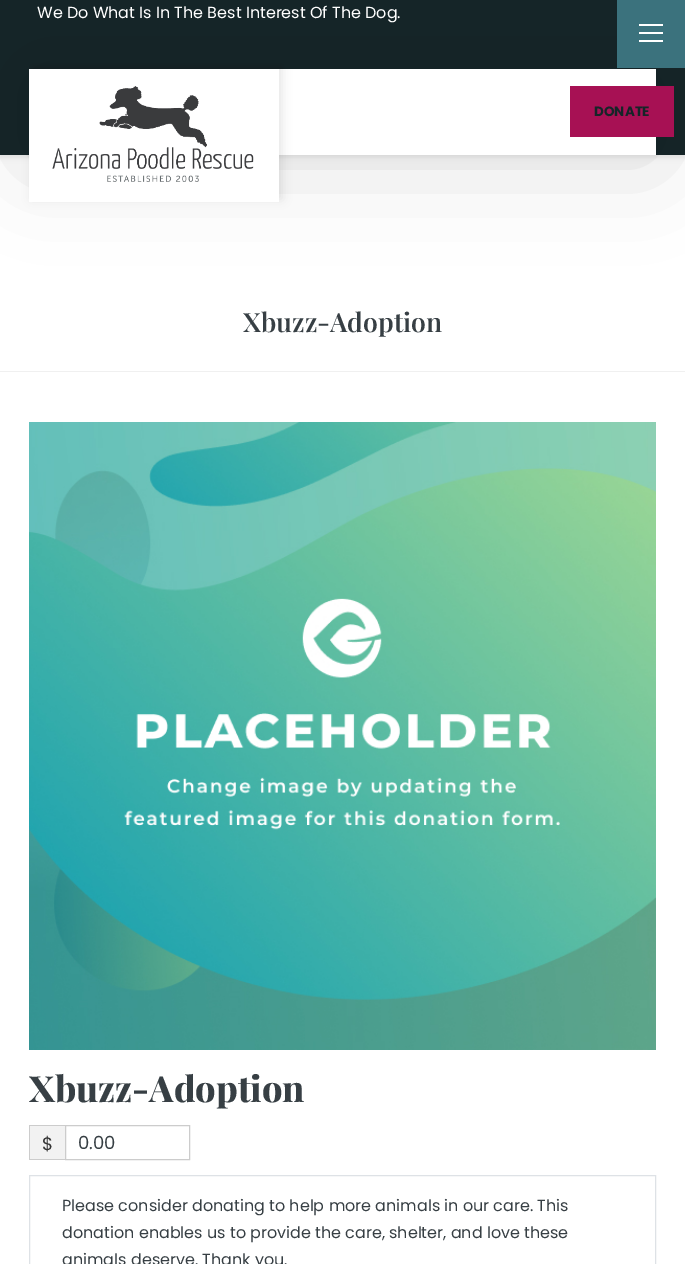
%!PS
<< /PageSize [685 1264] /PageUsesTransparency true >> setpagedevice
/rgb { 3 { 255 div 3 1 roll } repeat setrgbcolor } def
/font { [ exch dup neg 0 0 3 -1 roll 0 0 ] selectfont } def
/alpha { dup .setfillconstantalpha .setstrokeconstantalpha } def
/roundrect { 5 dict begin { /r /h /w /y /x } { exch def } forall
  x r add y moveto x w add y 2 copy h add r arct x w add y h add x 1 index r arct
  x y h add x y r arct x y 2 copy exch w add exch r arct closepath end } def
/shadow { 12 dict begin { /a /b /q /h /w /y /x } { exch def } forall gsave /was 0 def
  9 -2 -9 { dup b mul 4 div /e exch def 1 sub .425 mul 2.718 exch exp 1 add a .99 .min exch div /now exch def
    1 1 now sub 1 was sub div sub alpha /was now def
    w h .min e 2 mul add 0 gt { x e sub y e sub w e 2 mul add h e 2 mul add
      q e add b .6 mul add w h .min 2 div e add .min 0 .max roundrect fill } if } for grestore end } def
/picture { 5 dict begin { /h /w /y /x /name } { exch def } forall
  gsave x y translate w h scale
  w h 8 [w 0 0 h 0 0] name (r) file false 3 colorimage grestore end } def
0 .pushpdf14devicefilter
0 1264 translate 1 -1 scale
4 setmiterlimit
255 255 255 rgb
0 0 685 1264 rectfill
0 0 0 rgb
0 -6 685 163 0 3 0.1 shadow
21 37 40 rgb
0 0 685 155 rectfill
0 0 0 rgb
29 72 627 86 0 48 0.15 shadow
[
  [279 69 377 86 255 255 255]
  [617 0 68 68 59 114 125]
  [639 24 24 2 255 255 255]
  [639 32 24 2 255 255 255]
  [639 40 24 2 255 255 255]
] { aload pop rgb rectfill } forall
0 0 0 rgb
32 66 250 133 0 5 0.1 shadow
255 255 255 rgb
29 69 250 133 rectfill
(img/1.rgb) 52 86 202 96 picture
167 17 84 rgb
570 86 104 51 rectfill
240 240 240 rgb
0 371 685 1 rectfill
(img/2.rgb) 29 422 627 628 picture
[
  [30 1126 35 33 242 242 242]
  [29 1125 36 1 204 204 204]
  [29 1159 36 1 204 204 204]
  [29 1125 1 35 204 204 204]
] { aload pop rgb rectfill } forall
65.5 1125.5 124 34 rectstroke
222 226 230 rgb
29.5 1175.5 626 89 rectstroke
/Poppins-Regular 16 font
255 255 255 rgb
37 18 moveto (We Do What Is In The Best Interest Of The Dog.) show
/Poppins-Bold 13.5 font
21 37 40 rgb
594 116 moveto (DONATE) show
/PlayfairDisplay-SemiBold 26.5 font
55 63 68 rgb
243 332 moveto (Xbuzz-Adoption) show
/PlayfairDisplay-ExtraBold 36 font
29 1102 moveto (Xbuzz-Adoption) show
/Poppins-Regular 18 font
51 51 51 rgb
42 1150 moveto ($) show
55 63 68 rgb
78 1149 moveto (0.00) show
/Poppins-Regular 16 font
[
  [(Please consider donating to help more animals in our care. This) 62 1211]
  [(donation enables us to provide the care, shelter, and love these) 62 1238]
  [(animals deserve. Thank you.) 62 1265]
] { aload pop moveto show } forall
.poppdf14devicefilter showpage
